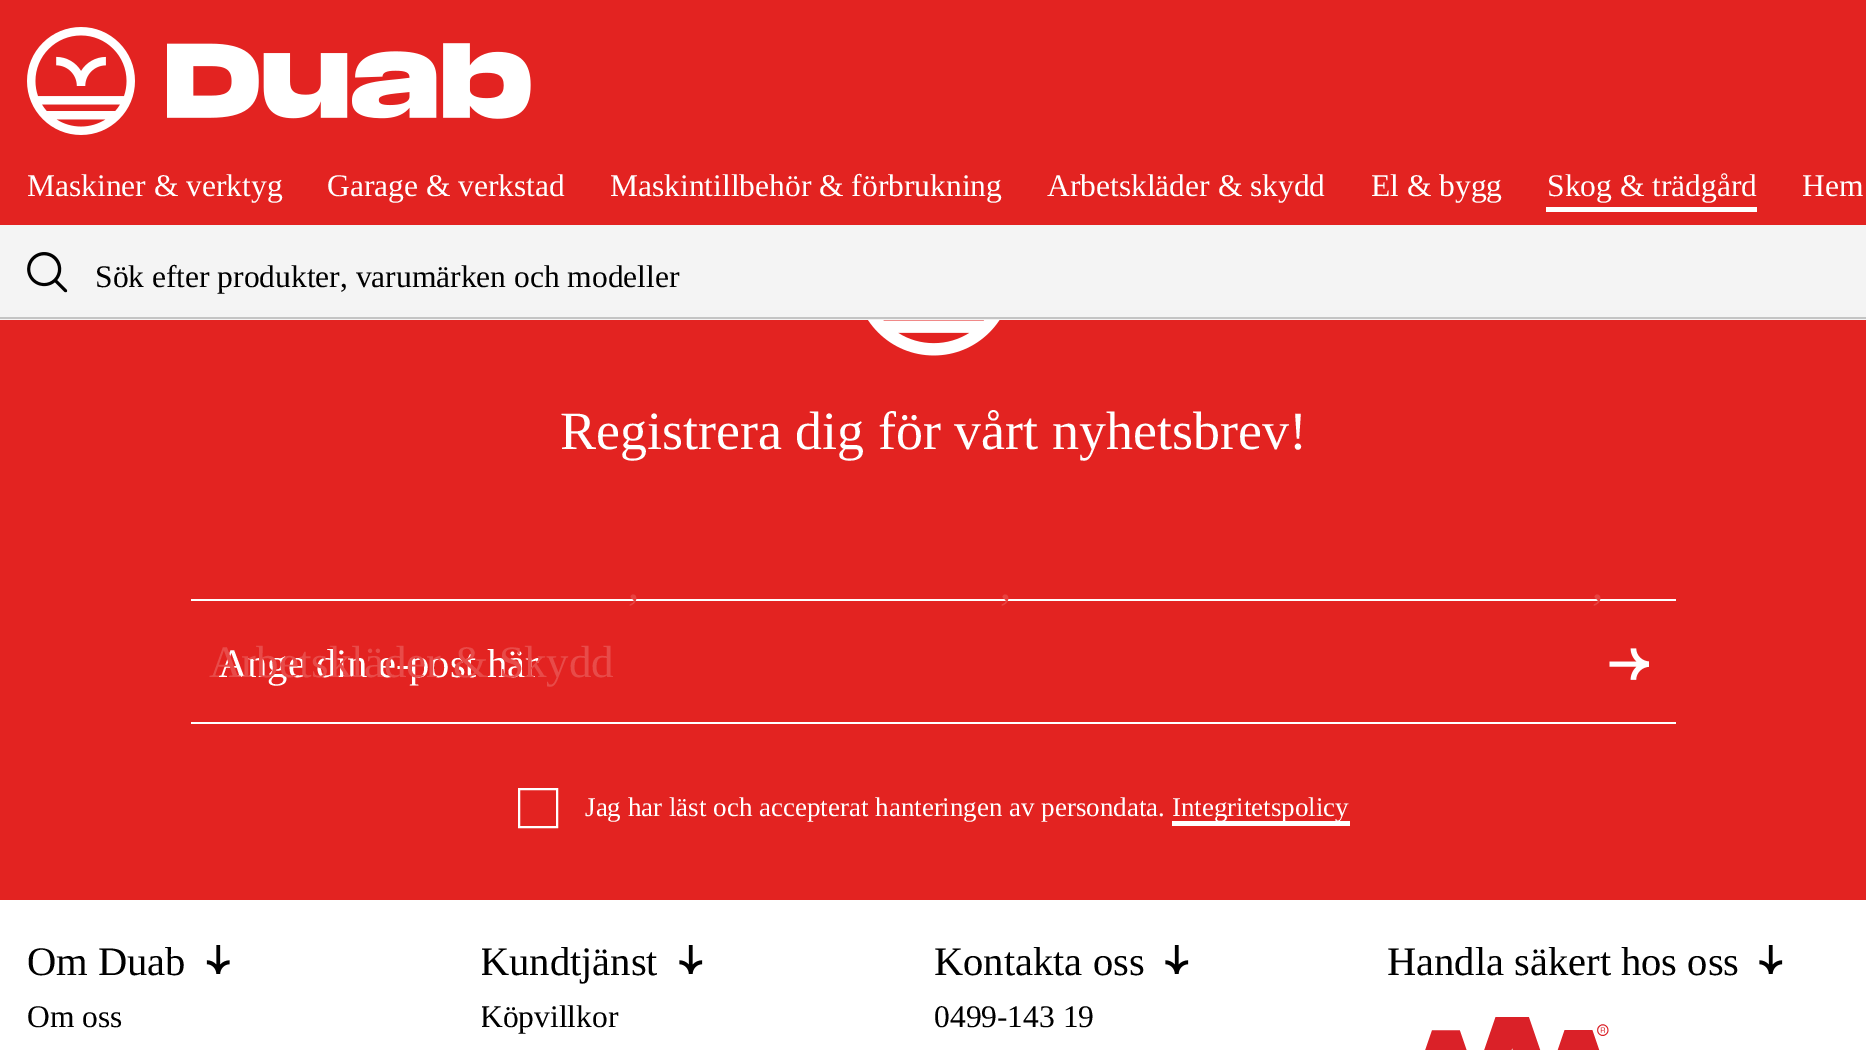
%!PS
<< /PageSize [1866 1050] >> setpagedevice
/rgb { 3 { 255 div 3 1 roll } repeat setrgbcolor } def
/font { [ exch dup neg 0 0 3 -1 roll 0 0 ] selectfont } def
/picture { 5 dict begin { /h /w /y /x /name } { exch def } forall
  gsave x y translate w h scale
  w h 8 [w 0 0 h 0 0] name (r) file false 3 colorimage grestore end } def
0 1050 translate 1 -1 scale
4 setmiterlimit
255 255 255 rgb
0 0 1866 1050 rectfill
[
  [0 0 1866 225 227 35 33]
  [1546 207 211 5 255 255 255]
  [0 225 1866 95 244 244 244]
  [0 317 1866 2 196 196 196]
] { aload pop rgb rectfill } forall
(img/1.rgb) 27 252 41 41 picture
(img/2.rgb) 27 27 108 108 picture
(img/3.rgb) 167 43 364 76 picture
227 35 33 rgb
0 320 1866 580 rectfill
(img/4.rgb) 868 320 132 36 picture
255 255 255 rgb
191 599 1485 2 rectfill
191 722 1485 2 rectfill
(img/5.rgb) 1609 648 40 32 picture
2 setlinewidth
519 789 38 38 rectstroke
1172 821 178 5 rectfill
(img/6.rgb) 206 945 24 29 picture
(img/7.rgb) 679 945 24 29 picture
(img/7.rgb) 1165 945 24 29 picture
(img/7.rgb) 1759 945 24 29 picture
(img/8.rgb) 1425 1017 184 33 picture
/LiberationSerif-Regular 31.5 font
[
  [(Maskiner & verktyg) 27 196]
  [(Garage & verkstad) 327 196]
  [(Maskintillbehör & förbrukning) 610 196]
  [(Arbetskläder & skydd) 1047 196]
  [(El & bygg) 1371 196]
  [(Skog & trädgård) 1547 196]
  [(Hem) 1802 196]
] { aload pop moveto show } forall
0 0 0 rgb
95 287 moveto (Sök efter produkter, varumärken och modeller) show
/LiberationSerif-Regular 45 font
231 67 65 rgb
[
  [(,) 628 599]
  [(,) 1000 599]
  [(,) 1592 599]
] { aload pop moveto show } forall
/LiberationSerif-Regular 54 font
255 255 255 rgb
560 449 moveto (Registrera dig för vårt nyhetsbrev!) show
/LiberationSerif-Regular 40.5 font
218 677 moveto (Ange din e-post här) show
/LiberationSerif-Regular 45 font
232 75 73 rgb
209 677 moveto (Arbetskläder & Skydd) show
/LiberationSerif-Regular 27 font
255 255 255 rgb
585 816 moveto (Jag har läst och accepterat hanteringen av persondata. Integritetspolicy) show
/LiberationSerif-Regular 40.5 font
0 0 0 rgb
27 975 moveto (Om Duab) show
/LiberationSerif-Regular 31.5 font
27 1027 moveto (Om oss) show
gsave
482 936 452 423 rectclip
/LiberationSerif-Regular 40.5 font
480 975 moveto (Kundtjänst) show
/LiberationSerif-Regular 31.5 font
480 1027 moveto (Köpvillkor) show
grestore
/LiberationSerif-Regular 40.5 font
934 975 moveto (Kontakta oss) show
/LiberationSerif-Regular 31.5 font
934 1027 moveto (0499-143 19) show
/LiberationSerif-Regular 40.5 font
1387 975 moveto (Handla säkert hos oss) show
showpage
